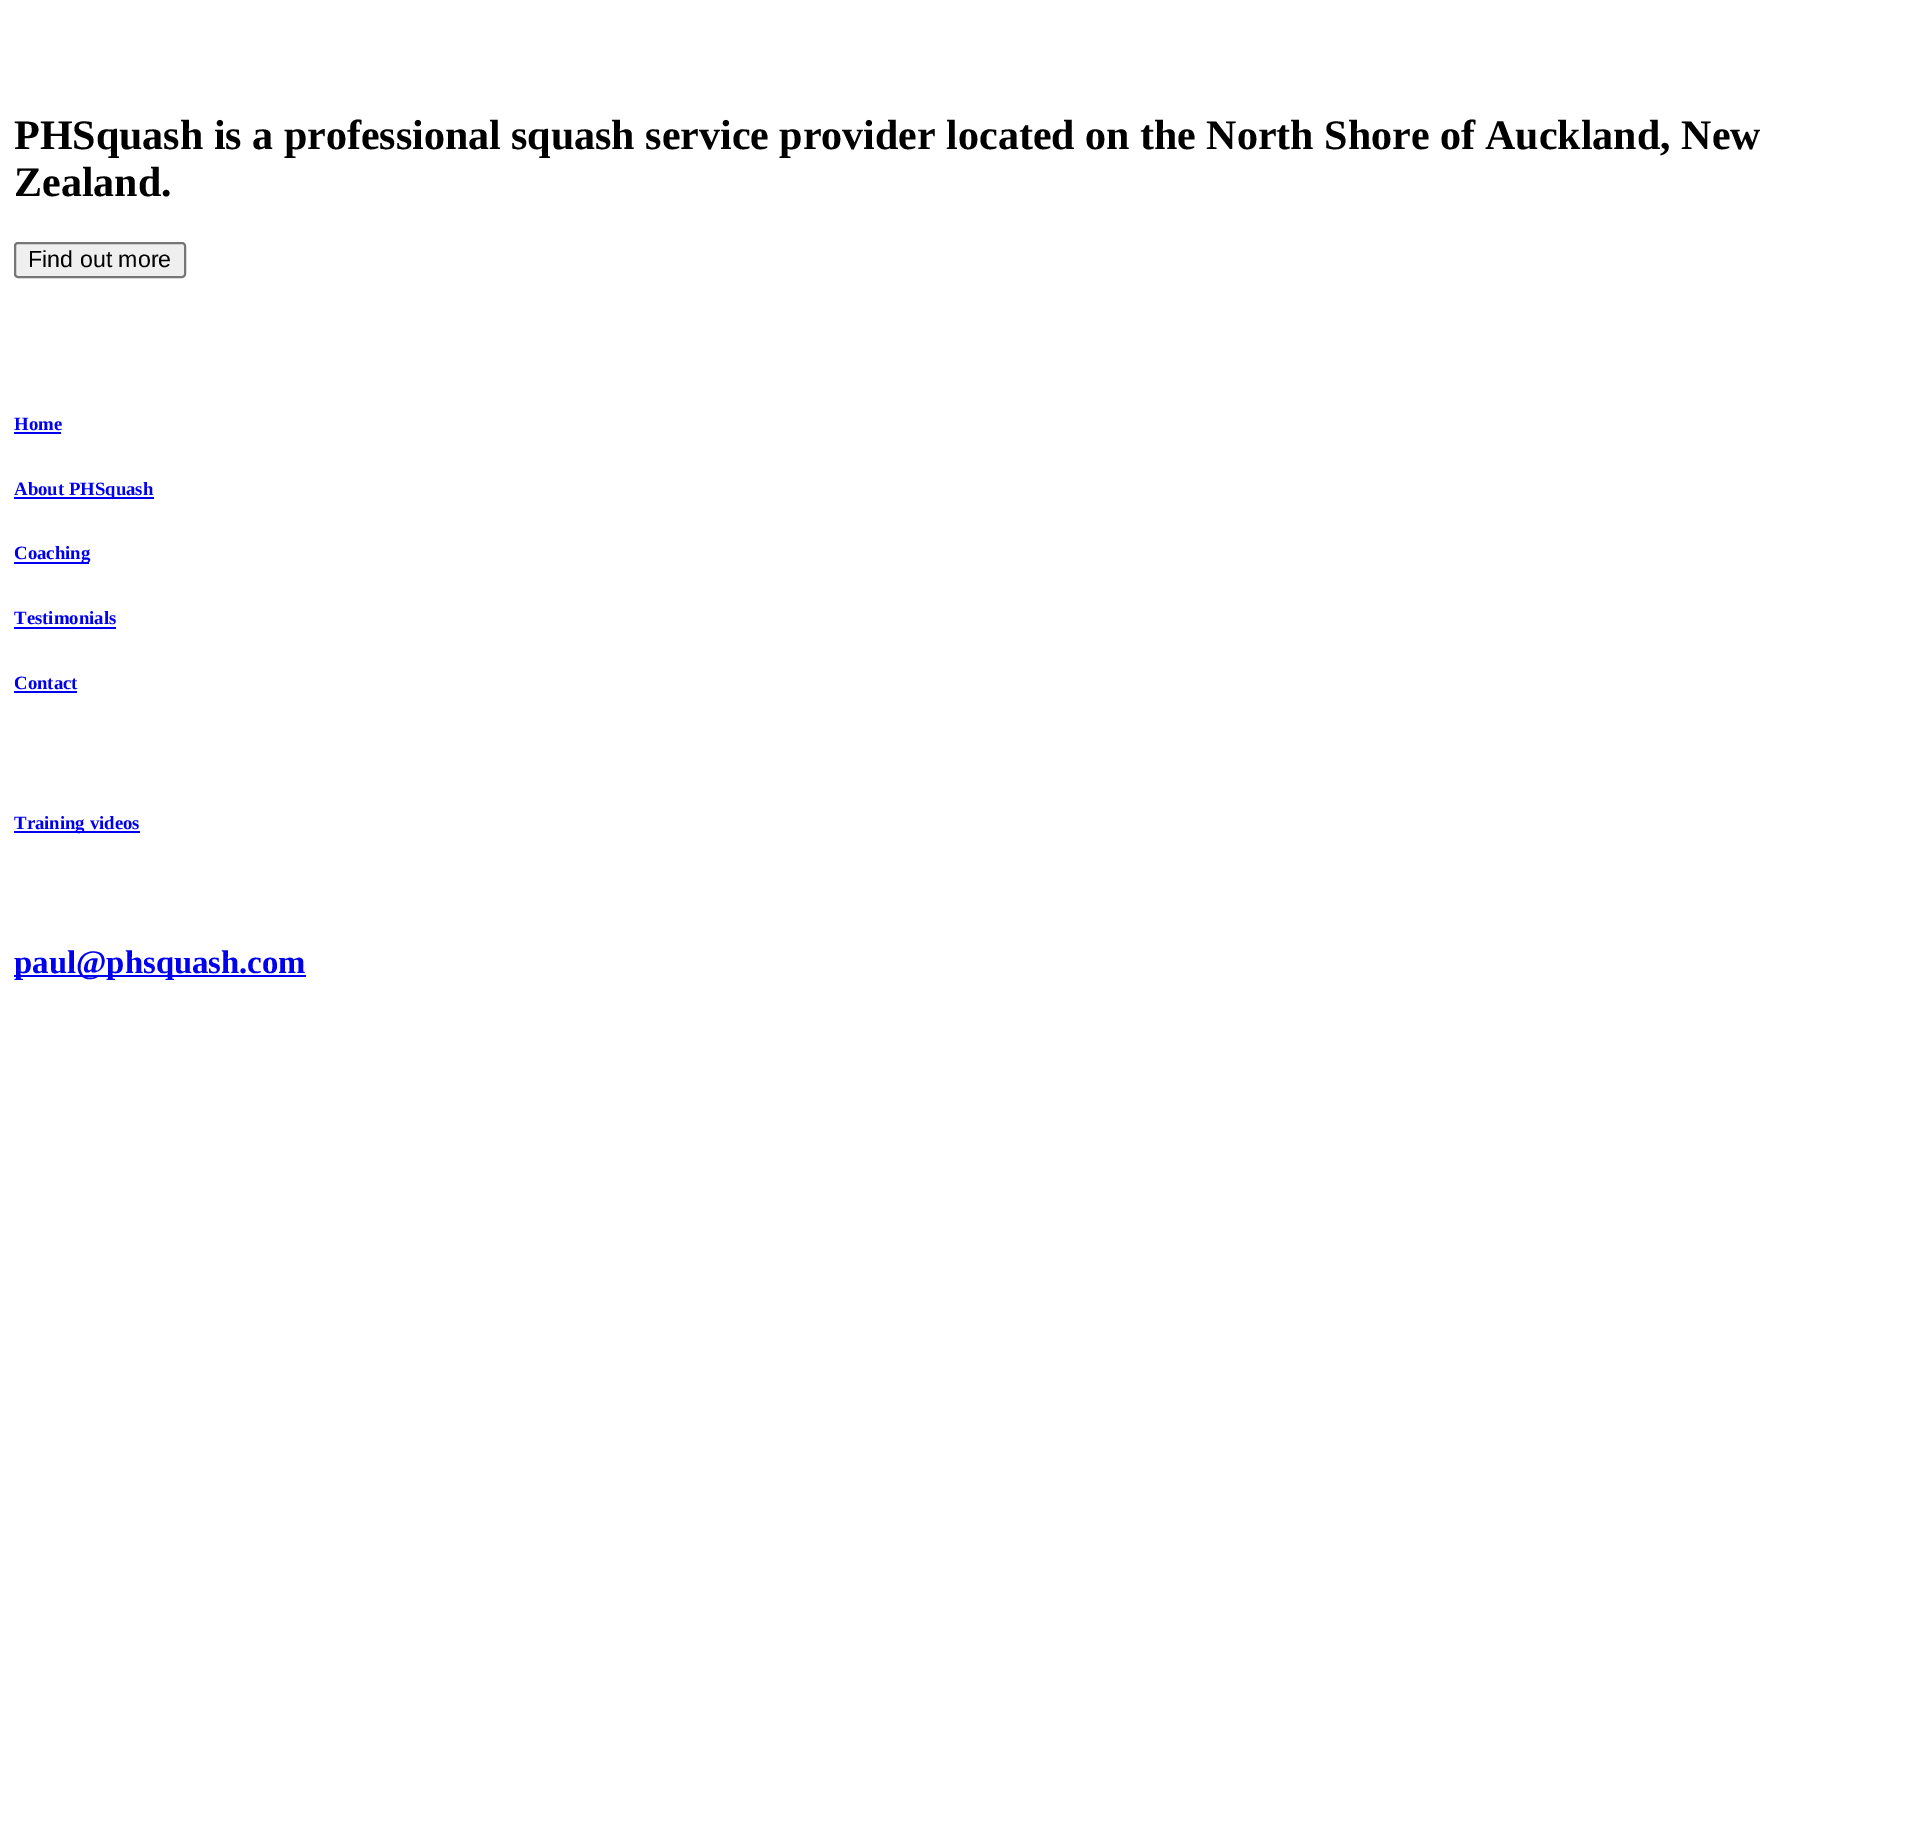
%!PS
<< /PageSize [1931 1840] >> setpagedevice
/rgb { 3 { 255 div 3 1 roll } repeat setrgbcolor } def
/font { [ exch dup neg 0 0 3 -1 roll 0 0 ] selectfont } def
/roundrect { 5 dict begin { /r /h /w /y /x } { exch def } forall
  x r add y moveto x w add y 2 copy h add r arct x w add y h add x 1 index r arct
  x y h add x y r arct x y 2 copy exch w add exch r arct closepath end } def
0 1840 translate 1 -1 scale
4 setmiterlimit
255 255 255 rgb
0 0 1931 1840 rectfill
239 239 239 rgb
15 243 170 34 3 roundrect gsave fill grestore
118 118 118 rgb
2 setlinewidth
stroke
[
  [14 432 47 2 0 0 238]
  [14 497 140 2 0 0 238]
  [14 562 75 2 0 0 238]
  [14 627 102 2 0 0 238]
  [14 691 63 2 0 0 238]
  [14 831 126 2 0 0 238]
  [14 975 292 2 0 0 238]
] { aload pop rgb rectfill } forall
/LiberationSerif-Bold 42 font
0 0 0 rgb
14 149 moveto (PHSquash is a professional squash service provider located on the North Shore of Auckland, New) show
14 196 moveto (Zealand.) show
/LiberationSans-Regular 23.25 font
28 267 moveto (Find out more) show
/LiberationSerif-Bold 18.75 font
0 0 238 rgb
[
  [(Home) 14 430]
  [(About PHSquash) 14 495]
  [(Coaching) 14 559]
  [(Testimonials) 14 624]
  [(Contact) 14 689]
  [(Training videos) 14 829]
] { aload pop moveto show } forall
/LiberationSerif-Bold 32.75 font
14 973 moveto (paul@phsquash.com) show
showpage
